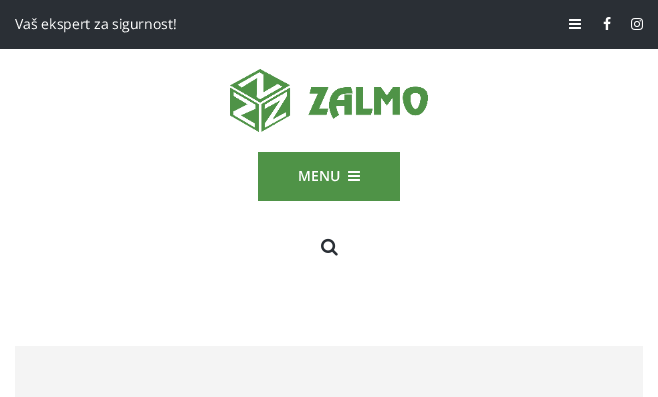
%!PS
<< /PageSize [658 397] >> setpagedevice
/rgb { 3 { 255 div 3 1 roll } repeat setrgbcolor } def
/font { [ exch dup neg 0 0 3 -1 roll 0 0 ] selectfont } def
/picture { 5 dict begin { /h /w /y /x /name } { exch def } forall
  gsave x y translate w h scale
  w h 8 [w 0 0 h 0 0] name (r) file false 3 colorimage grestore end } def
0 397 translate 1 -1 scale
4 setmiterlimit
255 255 255 rgb
0 0 658 397 rectfill
42 47 53 rgb
0 0 658 49 rectfill
(img/1.rgb) 569 19 12 10 picture
(img/2.rgb) 603 17 8 13 picture
(img/3.rgb) 631 18 12 12 picture
(img/4.rgb) 230 69 198 63 picture
79 147 71 rgb
258 152 142 49 rectfill
(img/5.rgb) 348 171 12 10 picture
(img/6.rgb) 321 238 17 18 picture
244 244 244 rgb
15 346 628 51 rectfill
/OpenSans-Regular 14 font
255 255 255 rgb
15 29 moveto (Vaš ekspert za sigurnost!) show
/OpenSans-SemiBold 14 font
298 181 moveto (MENU) show
showpage
